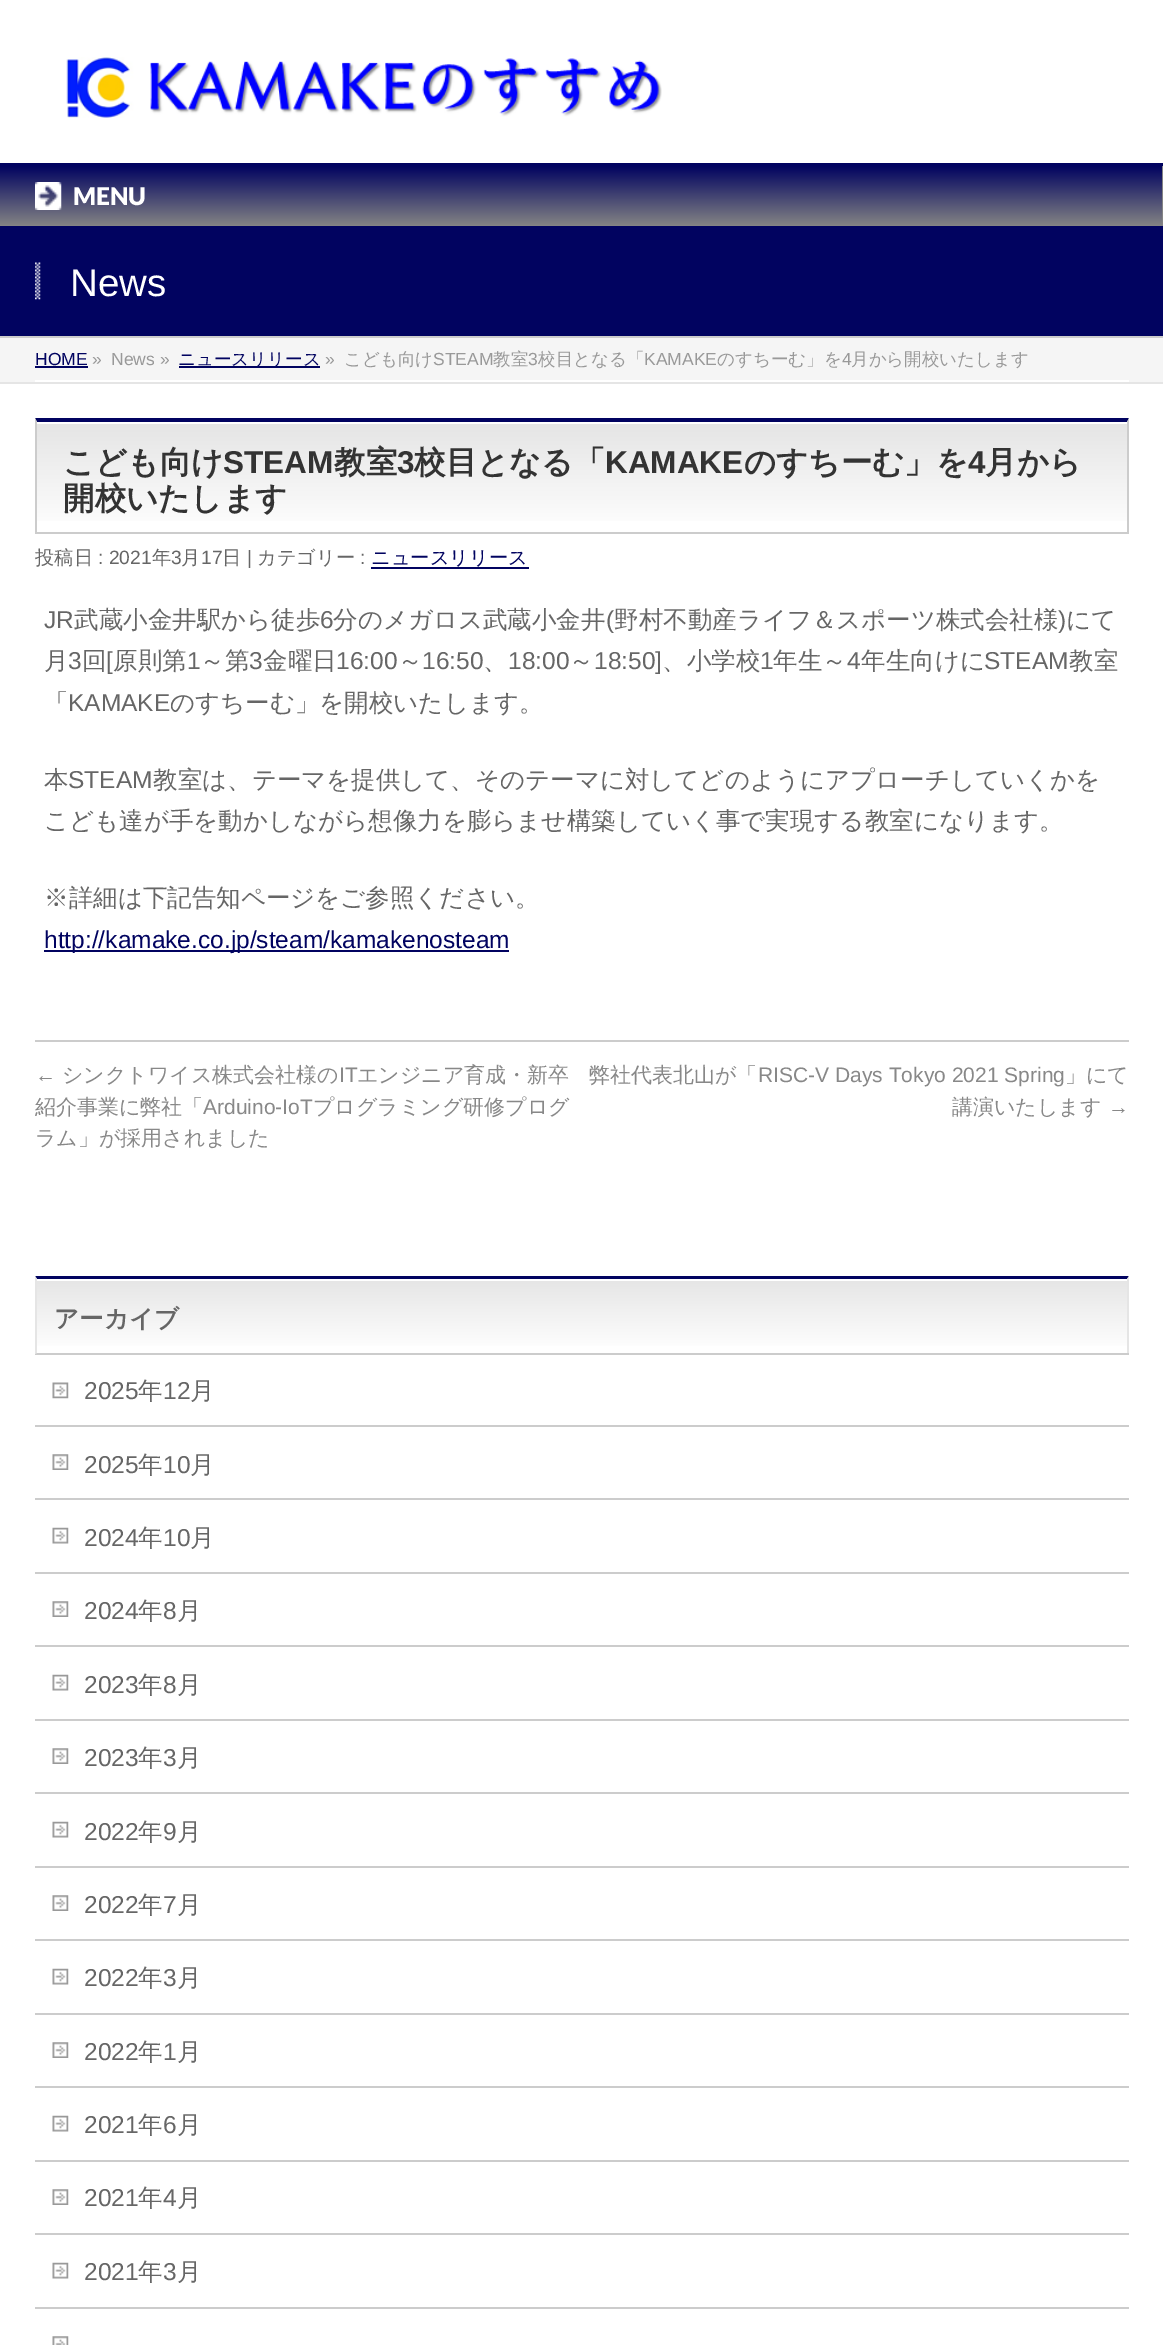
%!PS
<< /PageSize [1163 2345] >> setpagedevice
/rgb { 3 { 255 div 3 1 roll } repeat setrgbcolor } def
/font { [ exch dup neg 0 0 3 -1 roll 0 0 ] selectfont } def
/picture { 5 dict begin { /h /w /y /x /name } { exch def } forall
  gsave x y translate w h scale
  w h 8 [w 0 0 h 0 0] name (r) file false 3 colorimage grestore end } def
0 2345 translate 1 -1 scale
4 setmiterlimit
255 255 255 rgb
0 0 1163 2345 rectfill
(img/1.rgb) 66 57 596 61 picture
1 3 96 rgb
0 163 1163 3 rectfill
gsave 0 166 moveto 1162 166 lineto 1162 226 lineto 0 226 lineto closepath clip newpath
<< /ShadingType 2 /ColorSpace /DeviceRGB /Coords [581 166 581 226] /Extend [true true] /Function << /FunctionType 2 /Domain [0 1] /C0 [0.004 0.012 0.376] /C1 [0.518 0.518 0.518] /N 1 >> >> shfill grestore
132 132 132 rgb
1162 166 1 60 rectfill
(img/2.rgb) 35 182 27 28 picture
1 3 96 rgb
0 226 1163 110 rectfill
204 204 204 rgb
0 336 1163 2 rectfill
(img/3.rgb) 35 262 6 38 picture
[
  [0 338 1163 44 245 245 245]
  [0 382 1163 2 229 229 229]
  [35 380 1094 2 255 255 255]
  [35 366 53 2 1 3 96]
  [179 366 141 2 1 3 96]
] { aload pop rgb rectfill } forall
gsave 37 424 moveto 1127 424 lineto 1127 521 lineto 37 521 lineto closepath clip newpath
<< /ShadingType 2 /ColorSpace /DeviceRGB /Coords [37 422 37 532] /Extend [true true] /Function << /FunctionType 2 /Domain [0 1] /C0 [0.898 0.898 0.898] /C1 [1 1 1] /N 1 >> >> shfill grestore
35 418 moveto 1129 418 lineto 1127 422 lineto 37 422 lineto closepath fill
204 204 204 rgb
1129 418 moveto 1129 534 lineto 1127 532 lineto 1127 422 lineto closepath fill
35 532 1094 2 rectfill
35 534 moveto 35 418 lineto 37 422 lineto 37 532 lineto closepath fill
[
  [371 567 158 2 1 3 96]
  [44 950 465 2 1 3 96]
  [35 1040 1094 2 204 204 204]
] { aload pop rgb rectfill } forall
gsave 37 1281 moveto 1127 1281 lineto 1127 1346 lineto 37 1346 lineto closepath clip newpath
<< /ShadingType 2 /ColorSpace /DeviceRGB /Coords [37 1279 37 1353] /Extend [true true] /Function << /FunctionType 2 /Domain [0 1] /C0 [0.898 0.898 0.898] /C1 [1 1 1] /N 1 >> >> shfill grestore
1 3 96 rgb
35 1276 moveto 1129 1276 lineto 1127 1279 lineto 37 1279 lineto closepath fill
229 229 229 rgb
1129 1276 moveto 1129 1354 lineto 1127 1353 lineto 1127 1279 lineto closepath fill
204 204 204 rgb
35 1353 1094 2 rectfill
229 229 229 rgb
35 1354 moveto 35 1276 lineto 37 1279 lineto 37 1353 lineto closepath fill
204 204 204 rgb
35 1425 1094 2 rectfill
(img/4.rgb) 52 1382 17 17 picture
35 1498 1094 2 rectfill
(img/5.rgb) 52 1454 17 16 picture
35 1572 1094 2 rectfill
(img/6.rgb) 52 1527 17 17 picture
35 1645 1094 2 rectfill
(img/5.rgb) 52 1601 17 16 picture
35 1719 1094 2 rectfill
(img/6.rgb) 52 1674 17 17 picture
35 1792 1094 2 rectfill
(img/5.rgb) 52 1748 17 16 picture
35 1866 1094 2 rectfill
(img/6.rgb) 52 1821 17 17 picture
35 1939 1094 2 rectfill
(img/5.rgb) 52 1895 17 16 picture
35 2013 1094 2 rectfill
(img/6.rgb) 52 1968 17 17 picture
35 2086 1094 2 rectfill
(img/5.rgb) 52 2042 17 16 picture
35 2160 1094 2 rectfill
(img/6.rgb) 52 2115 17 17 picture
35 2233 1094 2 rectfill
(img/5.rgb) 52 2189 17 16 picture
35 2307 1094 2 rectfill
(img/6.rgb) 52 2262 17 17 picture
(img/7.rgb) 52 2336 17 9 picture
/Lato-Black 24.5 font
255 255 255 rgb
73 205 moveto (MENU) show
/LiberationSans-Regular 38.5 font
70 296 moveto (News) show
/LiberationSans-Regular 17.5 font
1 3 96 rgb
35 365 moveto (HOME) show
153 153 153 rgb
92 365 moveto (») show
111 365 moveto (News ») show
/WenQuanYiZenHei-Medium 17.5 font
1 3 96 rgb
178 365 moveto (ニュースリリース) show
/LiberationSans-Regular 17.5 font
153 153 153 rgb
325 365 moveto (») show
/WenQuanYiZenHei-Medium 17.5 font
344 365 moveto (こども向け) show
/LiberationSans-Regular 17.5 font
433 365 moveto (STEAM) show
/WenQuanYiZenHei-Medium 17.5 font
493 365 moveto (教室) show
/LiberationSans-Regular 17.5 font
528 365 moveto (3) show
/WenQuanYiZenHei-Medium 17.5 font
538 365 moveto (校目となる「) show
/LiberationSans-Regular 17.5 font
644 365 moveto (KAMAKE) show
/WenQuanYiZenHei-Medium 17.5 font
717 365 moveto (のすちーむ」を) show
/LiberationSans-Regular 17.5 font
842 365 moveto (4) show
/WenQuanYiZenHei-Medium 17.5 font
851 365 moveto (月から開校いたします) show
/WenQuanYiZenHei-Bold 31.5 font
51 51 51 rgb
63 473 moveto (こども向け) show
/LiberationSans-Bold 31.5 font
223 473 moveto (STEAM) show
/WenQuanYiZenHei-Bold 31.5 font
334 473 moveto (教室) show
/LiberationSans-Bold 31.5 font
397 473 moveto (3) show
/WenQuanYiZenHei-Bold 31.5 font
414 473 moveto (校目となる「) show
/LiberationSans-Bold 31.5 font
605 473 moveto (KAMAKE) show
/WenQuanYiZenHei-Bold 31.5 font
744 473 moveto (のすちーむ」を) show
/LiberationSans-Bold 31.5 font
968 473 moveto (4) show
/WenQuanYiZenHei-Bold 31.5 font
985 473 moveto (月から) show
63 509 moveto (開校いたします) show
/WenQuanYiZenHei-Medium 19.25 font
102 102 102 rgb
35 564 moveto (投稿日) show
/LiberationSans-Regular 19.25 font
98 564 moveto (: 2021) show
/WenQuanYiZenHei-Medium 19.25 font
152 564 moveto (年) show
/LiberationSans-Regular 19.25 font
171 564 moveto (3) show
/WenQuanYiZenHei-Medium 19.25 font
181 564 moveto (月) show
/LiberationSans-Regular 19.25 font
201 564 moveto (17) show
/WenQuanYiZenHei-Medium 19.25 font
222 564 moveto (日) show
/LiberationSans-Regular 19.25 font
247 564 moveto (|) show
/WenQuanYiZenHei-Medium 19.25 font
257 564 moveto (カテゴリー) show
/LiberationSans-Regular 19.25 font
360 564 moveto (:) show
/WenQuanYiZenHei-Medium 19.25 font
1 3 96 rgb
371 564 moveto (ニュースリリース) show
/LiberationSans-Regular 24.5 font
102 102 102 rgb
44 628 moveto (JR) show
/WenQuanYiZenHei-Medium 24.5 font
74 628 moveto (武蔵小金井駅から徒歩) show
/LiberationSans-Regular 24.5 font
320 628 moveto (6) show
/WenQuanYiZenHei-Medium 24.5 font
333 628 moveto (分のメガロス武蔵小金井) show
/LiberationSans-Regular 24.5 font
606 628 moveto (\() show
/WenQuanYiZenHei-Medium 24.5 font
614 628 moveto (野村不動産ライフ＆スポーツ株式会社様) show
/LiberationSans-Regular 24.5 font
1058 628 moveto (\)) show
/WenQuanYiZenHei-Medium 24.5 font
1066 628 moveto (にて) show
44 669 moveto (月) show
/LiberationSans-Regular 24.5 font
68 669 moveto (3) show
/WenQuanYiZenHei-Medium 24.5 font
82 669 moveto (回) show
/LiberationSans-Regular 24.5 font
106 669 moveto ([) show
/WenQuanYiZenHei-Medium 24.5 font
113 669 moveto (原則第) show
/LiberationSans-Regular 24.5 font
187 669 moveto (1) show
/WenQuanYiZenHei-Medium 24.5 font
200 669 moveto (～第) show
/LiberationSans-Regular 24.5 font
249 669 moveto (3) show
/WenQuanYiZenHei-Medium 24.5 font
263 669 moveto (金曜日) show
/LiberationSans-Regular 24.5 font
336 669 moveto (16:00) show
/WenQuanYiZenHei-Medium 24.5 font
398 669 moveto (～) show
/LiberationSans-Regular 24.5 font
422 669 moveto (16:50) show
508 669 moveto (18:00) show
/WenQuanYiZenHei-Medium 24.5 font
569 669 moveto (～) show
/LiberationSans-Regular 24.5 font
594 669 moveto (18:50]) show
/WenQuanYiZenHei-Medium 24.5 font
662 669 moveto (、小学校) show
/LiberationSans-Regular 24.5 font
760 669 moveto (1) show
/WenQuanYiZenHei-Medium 24.5 font
773 669 moveto (年生～) show
/LiberationSans-Regular 24.5 font
847 669 moveto (4) show
/WenQuanYiZenHei-Medium 24.5 font
861 669 moveto (年生向けに) show
/LiberationSans-Regular 24.5 font
984 669 moveto (STEAM) show
/WenQuanYiZenHei-Medium 24.5 font
[
  [(教室) 1069 669]
  [(、) 483 669]
  [(「) 44 711]
] { aload pop moveto show } forall
/LiberationSans-Regular 24.5 font
68 711 moveto (KAMAKE) show
/WenQuanYiZenHei-Medium 24.5 font
170 711 moveto (のすちーむ」を開校いたします。) show
44 788 moveto (本) show
/LiberationSans-Regular 24.5 font
68 788 moveto (STEAM) show
/WenQuanYiZenHei-Medium 24.5 font
[
  [(教室は、テーマを提供して、そのテーマに対してどのようにアプローチしていくかを) 153 788]
  [(こども達が手を動かしながら想像力を膨らませ構築していく事で実現する教室になります。) 44 829]
  [(※詳細は下記告知ページをご参照ください。) 44 906]
] { aload pop moveto show } forall
/LiberationSans-Regular 24.5 font
1 3 96 rgb
44 948 moveto (http://kamake.co.jp/steam/kamakenosteam) show
/LiberationSans-Regular 21 font
136 136 136 rgb
35 1082 moveto (←) show
/WenQuanYiZenHei-Medium 21 font
62 1082 moveto (シンクトワイス株式会社様の) show
/LiberationSans-Regular 21 font
339 1082 moveto (IT) show
/WenQuanYiZenHei-Medium 21 font
357 1082 moveto (エンジニア育成・新卒) show
35 1114 moveto (紹介事業に弊社「) show
/LiberationSans-Regular 21 font
203 1114 moveto (Arduino-IoT) show
/WenQuanYiZenHei-Medium 21 font
[
  [(プログラミング研修プログ) 313 1114]
  [(ラム」が採用されました) 35 1145]
  [(弊社代表北山が「) 589 1082]
] { aload pop moveto show } forall
/LiberationSans-Regular 21 font
758 1082 moveto (RISC-V Days Tokyo 2021 Spring) show
/WenQuanYiZenHei-Medium 21 font
1065 1082 moveto (」にて) show
952 1114 moveto (講演いたします) show
/LiberationSans-Regular 21 font
1108 1114 moveto (→) show
/WenQuanYiZenHei-Bold 24.5 font
102 102 102 rgb
54 1327 moveto (アーカイブ) show
/LiberationSans-Regular 24.5 font
84 1399 moveto (2025) show
/WenQuanYiZenHei-Medium 24.5 font
138 1399 moveto (年) show
/LiberationSans-Regular 24.5 font
163 1399 moveto (12) show
/WenQuanYiZenHei-Medium 24.5 font
190 1399 moveto (月) show
/LiberationSans-Regular 24.5 font
84 1473 moveto (2025) show
/WenQuanYiZenHei-Medium 24.5 font
138 1473 moveto (年) show
/LiberationSans-Regular 24.5 font
163 1473 moveto (10) show
/WenQuanYiZenHei-Medium 24.5 font
190 1473 moveto (月) show
/LiberationSans-Regular 24.5 font
84 1546 moveto (2024) show
/WenQuanYiZenHei-Medium 24.5 font
138 1546 moveto (年) show
/LiberationSans-Regular 24.5 font
163 1546 moveto (10) show
/WenQuanYiZenHei-Medium 24.5 font
190 1546 moveto (月) show
/LiberationSans-Regular 24.5 font
84 1619 moveto (2024) show
/WenQuanYiZenHei-Medium 24.5 font
138 1619 moveto (年) show
/LiberationSans-Regular 24.5 font
163 1619 moveto (8) show
/WenQuanYiZenHei-Medium 24.5 font
177 1619 moveto (月) show
/LiberationSans-Regular 24.5 font
84 1693 moveto (2023) show
/WenQuanYiZenHei-Medium 24.5 font
138 1693 moveto (年) show
/LiberationSans-Regular 24.5 font
163 1693 moveto (8) show
/WenQuanYiZenHei-Medium 24.5 font
177 1693 moveto (月) show
/LiberationSans-Regular 24.5 font
84 1766 moveto (2023) show
/WenQuanYiZenHei-Medium 24.5 font
138 1766 moveto (年) show
/LiberationSans-Regular 24.5 font
163 1766 moveto (3) show
/WenQuanYiZenHei-Medium 24.5 font
177 1766 moveto (月) show
/LiberationSans-Regular 24.5 font
84 1840 moveto (2022) show
/WenQuanYiZenHei-Medium 24.5 font
138 1840 moveto (年) show
/LiberationSans-Regular 24.5 font
163 1840 moveto (9) show
/WenQuanYiZenHei-Medium 24.5 font
177 1840 moveto (月) show
/LiberationSans-Regular 24.5 font
84 1913 moveto (2022) show
/WenQuanYiZenHei-Medium 24.5 font
138 1913 moveto (年) show
/LiberationSans-Regular 24.5 font
163 1913 moveto (7) show
/WenQuanYiZenHei-Medium 24.5 font
177 1913 moveto (月) show
/LiberationSans-Regular 24.5 font
84 1986 moveto (2022) show
/WenQuanYiZenHei-Medium 24.5 font
138 1986 moveto (年) show
/LiberationSans-Regular 24.5 font
163 1986 moveto (3) show
/WenQuanYiZenHei-Medium 24.5 font
177 1986 moveto (月) show
/LiberationSans-Regular 24.5 font
84 2060 moveto (2022) show
/WenQuanYiZenHei-Medium 24.5 font
138 2060 moveto (年) show
/LiberationSans-Regular 24.5 font
163 2060 moveto (1) show
/WenQuanYiZenHei-Medium 24.5 font
177 2060 moveto (月) show
/LiberationSans-Regular 24.5 font
84 2133 moveto (2021) show
/WenQuanYiZenHei-Medium 24.5 font
138 2133 moveto (年) show
/LiberationSans-Regular 24.5 font
163 2133 moveto (6) show
/WenQuanYiZenHei-Medium 24.5 font
177 2133 moveto (月) show
/LiberationSans-Regular 24.5 font
84 2206 moveto (2021) show
/WenQuanYiZenHei-Medium 24.5 font
138 2206 moveto (年) show
/LiberationSans-Regular 24.5 font
163 2206 moveto (4) show
/WenQuanYiZenHei-Medium 24.5 font
177 2206 moveto (月) show
/LiberationSans-Regular 24.5 font
84 2280 moveto (2021) show
/WenQuanYiZenHei-Medium 24.5 font
138 2280 moveto (年) show
/LiberationSans-Regular 24.5 font
163 2280 moveto (3) show
/WenQuanYiZenHei-Medium 24.5 font
177 2280 moveto (月) show
showpage
